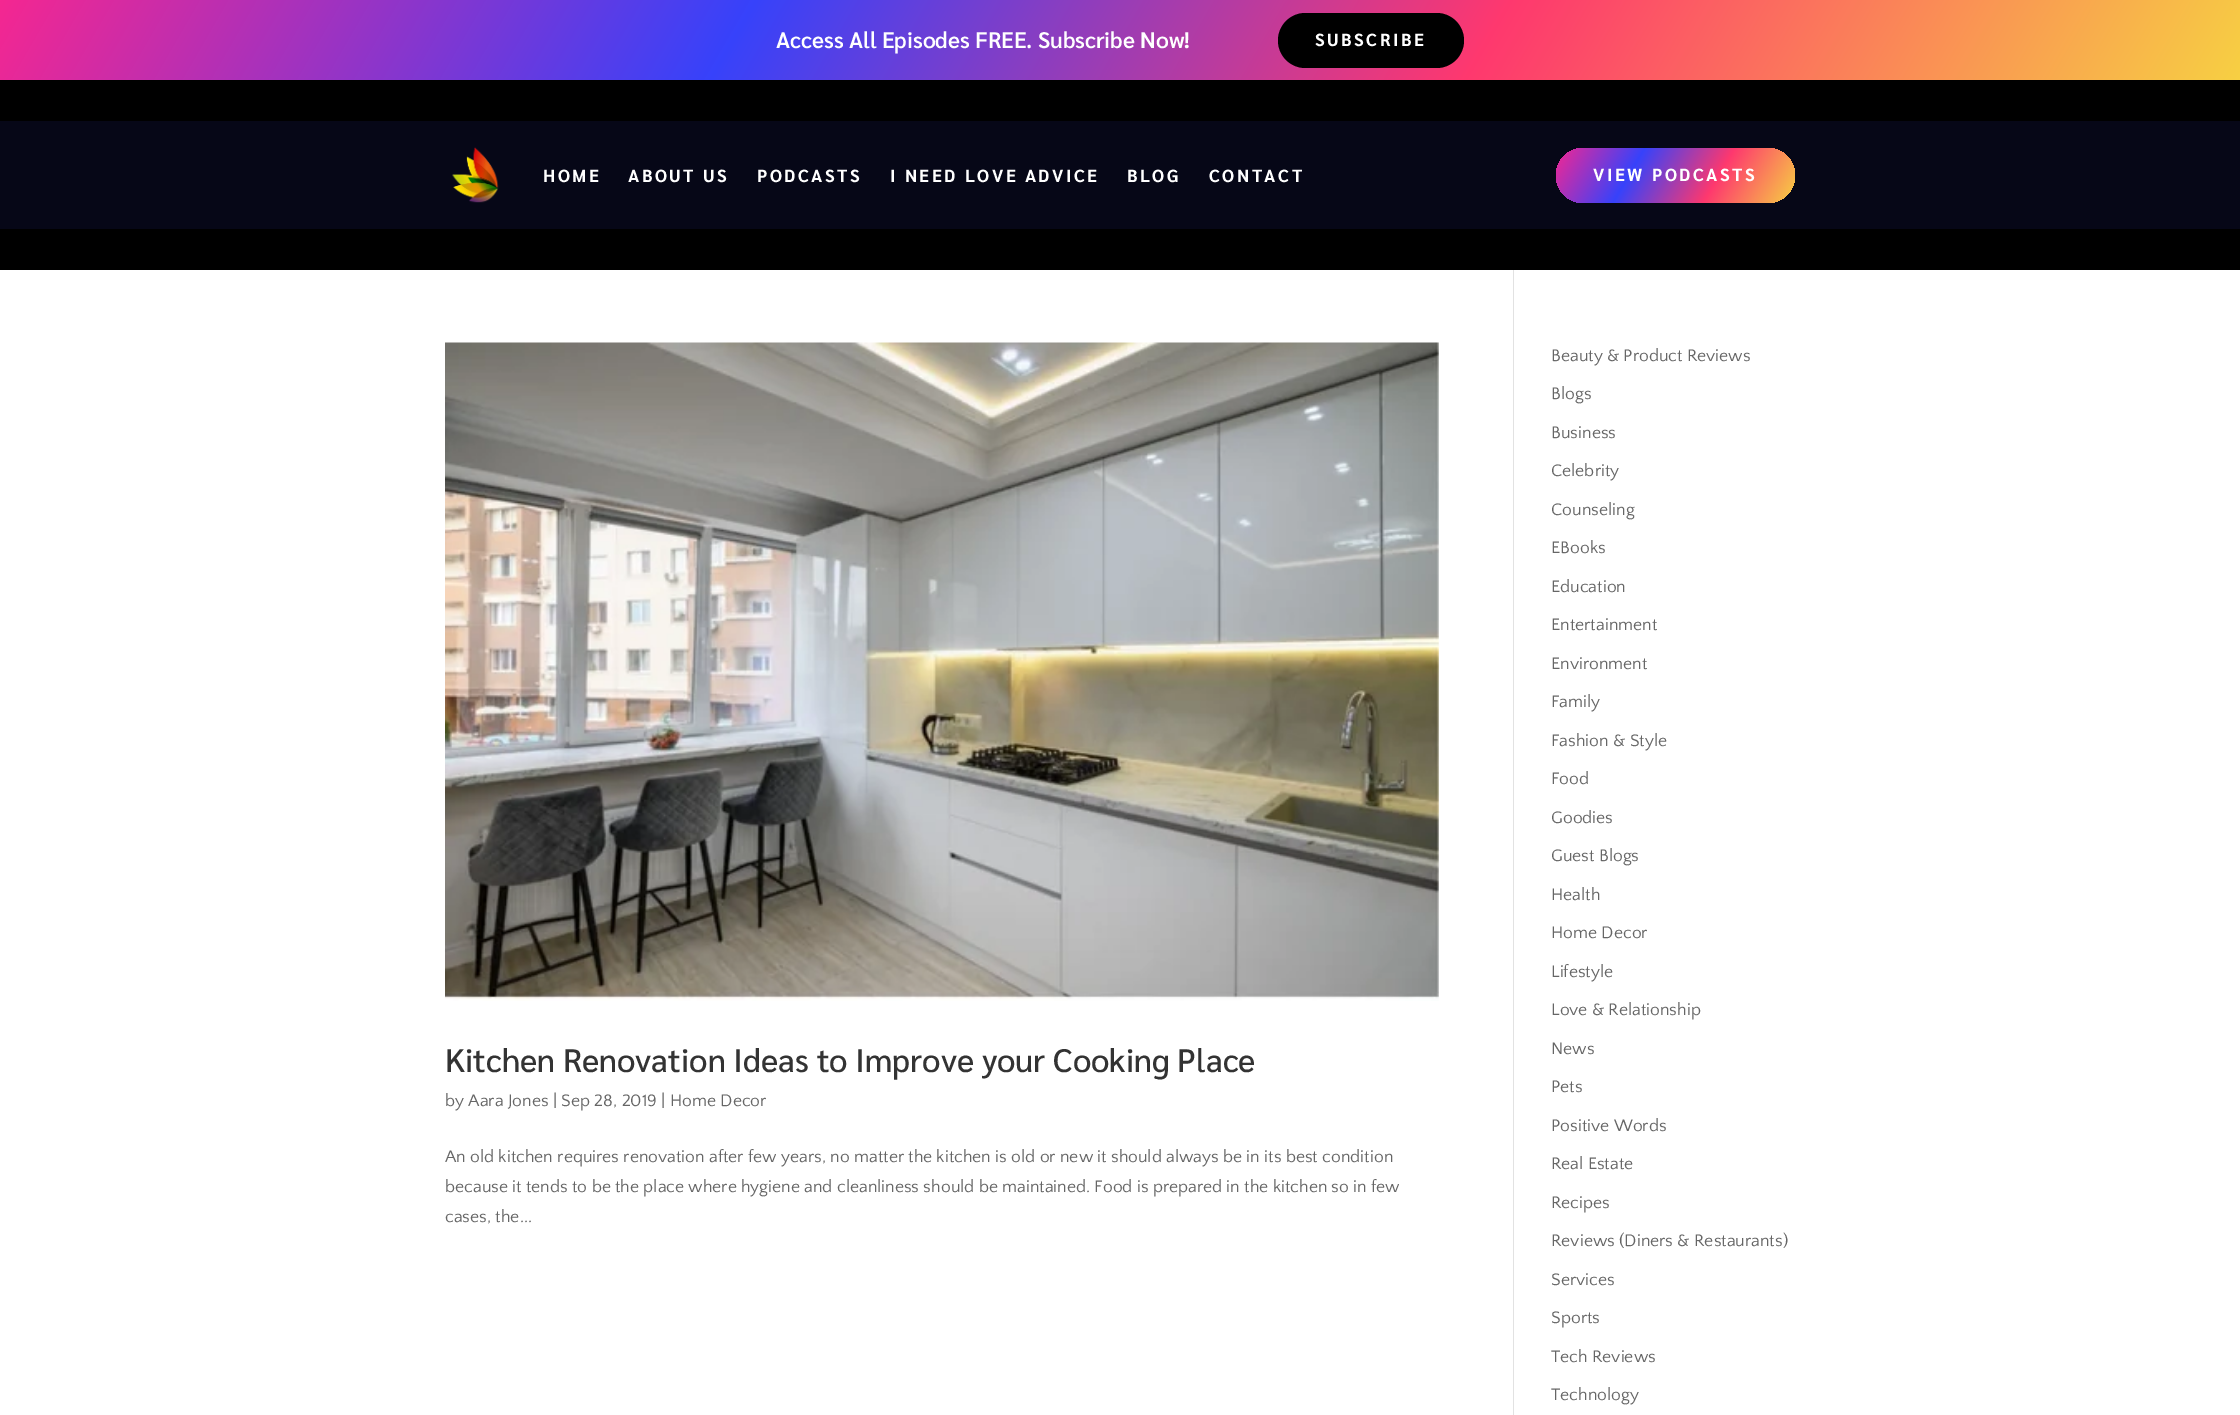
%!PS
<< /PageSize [2240 1415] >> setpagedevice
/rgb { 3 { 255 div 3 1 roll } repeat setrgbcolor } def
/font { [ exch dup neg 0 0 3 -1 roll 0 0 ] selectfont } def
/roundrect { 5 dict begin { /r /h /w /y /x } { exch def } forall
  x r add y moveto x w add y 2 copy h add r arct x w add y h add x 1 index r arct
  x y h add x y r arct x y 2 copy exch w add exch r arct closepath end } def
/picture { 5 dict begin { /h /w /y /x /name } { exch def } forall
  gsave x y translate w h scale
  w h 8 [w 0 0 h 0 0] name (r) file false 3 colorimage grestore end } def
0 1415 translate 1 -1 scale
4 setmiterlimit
0 0 0 rgb
0 0 2240 1415 rectfill
gsave 0 0 moveto 2240 0 lineto 2240 80 lineto 0 80 lineto closepath clip newpath
<< /ShadingType 2 /ColorSpace /DeviceRGB /Coords [263 -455 1977 535] /Extend [true true] /Function << /FunctionType 3 /Domain [0 1] /Functions [<< /FunctionType 2 /Domain [0 1] /C0 [0.961 0.153 0.569] /C1 [0.216 0.259 0.984] /N 1 >> << /FunctionType 2 /Domain [0 1] /C0 [0.216 0.259 0.984] /C1 [0.996 0.22 0.435] /N 1 >> << /FunctionType 2 /Domain [0 1] /C0 [0.996 0.22 0.435] /C1 [0.969 0.816 0.263] /N 1 >>] /Bounds [0.33 0.66] /Encode [0 1 0 1 0 1] >> >> shfill grestore
1278 13 186 55 27.5 roundrect fill
6 7 23 rgb
0 121 2240 108 rectfill
(img/1.rgb) 452 147 47 56 picture
gsave 1556 148 239 55 27.5 roundrect clip newpath
<< /ShadingType 2 /ColorSpace /DeviceRGB /Coords [1574 116 1777 234] /Extend [true true] /Function << /FunctionType 3 /Domain [0 1] /Functions [<< /FunctionType 2 /Domain [0 1] /C0 [0.961 0.153 0.569] /C1 [0.216 0.259 0.984] /N 1 >> << /FunctionType 2 /Domain [0 1] /C0 [0.216 0.259 0.984] /C1 [0.996 0.22 0.435] /N 1 >> << /FunctionType 2 /Domain [0 1] /C0 [0.996 0.22 0.435] /C1 [0.969 0.816 0.263] /N 1 >>] /Bounds [0.33 0.66] /Encode [0 1 0 1 0 1] >> >> shfill grestore
255 255 255 rgb
0 270 2240 1145 rectfill
226 226 226 rgb
1513 270 1 1145 rectfill
(img/2.rgb) 445 342 994 659 picture
/Sarabun-SemiBold 22.5 font
255 255 255 rgb
776 48 moveto (Access All Episodes FREE. Subscribe Now!) show
/Sarabun-Bold 17.5 font
1315 46 moveto 2.5 0 (SUBSCRIBE) ashow
543 182 moveto 2.5 0 (HOME) ashow
628 182 moveto 2.5 0 (ABOUT US) ashow
757 182 moveto 2.5 0 (PODCASTS) ashow
890 182 moveto 2.5 0 (I NEED LOVE ADVICE) ashow
1127 182 moveto 2.5 0 (BLOG) ashow
1209 182 moveto 2.5 0 (CONTACT) ashow
1593 181 moveto 2.5 0 (VIEW PODCASTS) ashow
/Sarabun-Medium 32.5 font
51 51 51 rgb
445 1072 moveto (Kitchen Renovation Ideas to Improve your Cooking Place) show
/QuattrocentoSans-Regular 17.5 font
102 102 102 rgb
[
  [(by Aara Jones | Sep 28, 2019 | Home Decor) 445 1106]
  [(An old kitchen requires renovation after few years, no matter the kitchen is old or new it should always be in its best condition) 445 1162]
  [(because it tends to be the place where hygiene and cleanliness should be maintained. Food is prepared in the kitchen so in few) 445 1192]
  [(cases, the...) 445 1222]
  [(Beauty & Product Reviews) 1551 361]
  [(Blogs) 1551 399]
  [(Business) 1551 438]
  [(Celebrity) 1551 476]
  [(Counseling) 1551 515]
  [(EBooks) 1551 553]
  [(Education) 1551 592]
  [(Entertainment) 1551 630]
  [(Environment) 1551 669]
  [(Family) 1551 707]
  [(Fashion & Style) 1551 746]
  [(Food) 1551 784]
  [(Goodies) 1551 823]
  [(Guest Blogs) 1551 861]
  [(Health) 1551 900]
  [(Home Decor) 1551 938]
  [(Lifestyle) 1551 977]
  [(Love & Relationship) 1551 1015]
  [(News) 1551 1054]
  [(Pets) 1551 1092]
  [(Positive Words) 1551 1131]
  [(Real Estate) 1551 1169]
  [(Recipes) 1551 1208]
  [(Reviews \(Diners & Restaurants\)) 1551 1246]
  [(Services) 1551 1285]
  [(Sports) 1551 1323]
  [(Tech Reviews) 1551 1362]
  [(Technology) 1551 1400]
] { aload pop moveto show } forall
showpage
